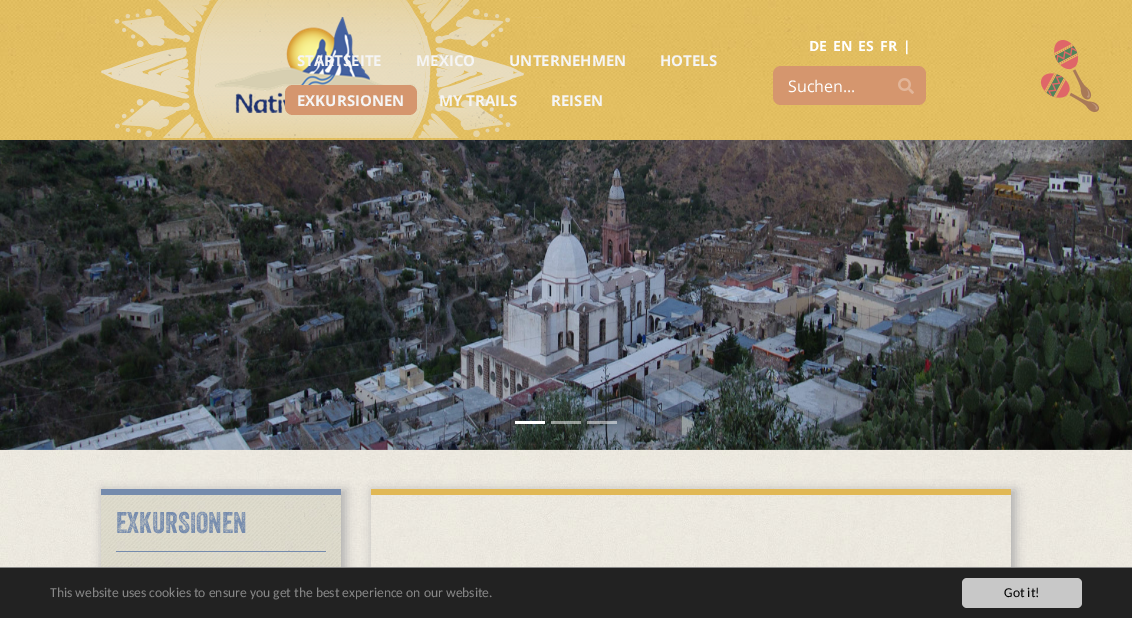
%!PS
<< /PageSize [1132 618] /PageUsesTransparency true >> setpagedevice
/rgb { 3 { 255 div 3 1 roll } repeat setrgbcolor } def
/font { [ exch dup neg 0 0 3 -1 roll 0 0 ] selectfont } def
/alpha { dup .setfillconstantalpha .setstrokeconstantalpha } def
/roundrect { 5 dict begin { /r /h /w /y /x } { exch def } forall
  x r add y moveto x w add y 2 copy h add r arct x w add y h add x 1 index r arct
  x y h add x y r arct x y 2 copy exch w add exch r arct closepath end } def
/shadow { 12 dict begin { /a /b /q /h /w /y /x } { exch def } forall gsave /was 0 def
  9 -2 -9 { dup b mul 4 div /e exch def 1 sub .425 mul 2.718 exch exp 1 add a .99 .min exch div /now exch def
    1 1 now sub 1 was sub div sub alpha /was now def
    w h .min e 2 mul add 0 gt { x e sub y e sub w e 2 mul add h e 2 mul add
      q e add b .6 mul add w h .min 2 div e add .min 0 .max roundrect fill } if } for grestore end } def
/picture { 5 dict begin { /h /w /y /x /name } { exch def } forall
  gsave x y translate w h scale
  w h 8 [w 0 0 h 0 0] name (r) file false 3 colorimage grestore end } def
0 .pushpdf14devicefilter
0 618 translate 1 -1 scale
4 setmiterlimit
255 255 255 rgb
0 0 1132 618 rectfill
(img/1.rgb) 0 449 1132 118 picture
(img/2.rgb) 0 0 1132 140 picture
(img/3.rgb) 101 0 441 138 picture
(img/4.rgb) 1041 40 58 72 picture
213 150 110 rgb
773 66 153 39 8 roundrect fill
(img/5.rgb) 898 78 16 16 picture
285 85 132 30 8 roundrect fill
(img/6.rgb) 0 140 1132 310 picture
[
  [515 421 30 3 255 255 255]
] { aload pop rgb rectfill } forall
0.5 alpha
[
  [551 421 30 3 255 255 255]
  [587 421 30 3 255 255 255]
] { aload pop rgb rectfill } forall
1 alpha
179 179 179 rgb
102 490 244 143 0 5 1 shadow
(img/7.rgb) 101 495 240 72 picture
117 139 173 rgb
101 489 240 6 rectfill
116 551 210 1 rectfill
gsave
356 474 moveto 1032 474 lineto 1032 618 lineto 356 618 lineto closepath 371 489 moveto 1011 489 lineto 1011 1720 lineto 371 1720 lineto closepath eoclip newpath
179 179 179 rgb
372 490 644 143 0 5 1 shadow
grestore
[
  [371 489 640 6 225 184 86]
  [0 568 1132 50 34 34 34]
  [0 567 1132 1 136 136 136]
] { aload pop rgb rectfill } forall
200 200 200 rgb
962 578 120 30 5 roundrect fill
/OpenSans-Bold 14 font
255 255 255 rgb
[
  [(DE) 809 51]
  [(EN) 833 51]
  [(ES) 858 51]
  [(FR) 880 51]
  [(|) 903 51]
] { aload pop moveto show } forall
/OpenSans-Regular 16 font
788 92 moveto (Suchen...) show
/OpenSans-Bold 15 font
245 245 245 rgb
[
  [(STARTSEITE) 297 66]
  [(MEXICO) 416 66]
  [(UNTERNEHMEN) 509 66]
  [(HOTELS) 660 66]
  [(EXKURSIONEN) 297 106]
  [(MY TRAILS) 439 106]
  [(REISEN) 551 106]
] { aload pop moveto show } forall
/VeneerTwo-Regular 29 font
117 139 173 rgb
116 533 moveto (EXKURSIONEN) show
/Carlito-Regular 13.6 font
136 136 136 rgb
50 597 moveto (This website uses cookies to ensure you get the best experience on our website.) show
0 0 0 rgb
1004 597 moveto (Got it!) show
.poppdf14devicefilter showpage
